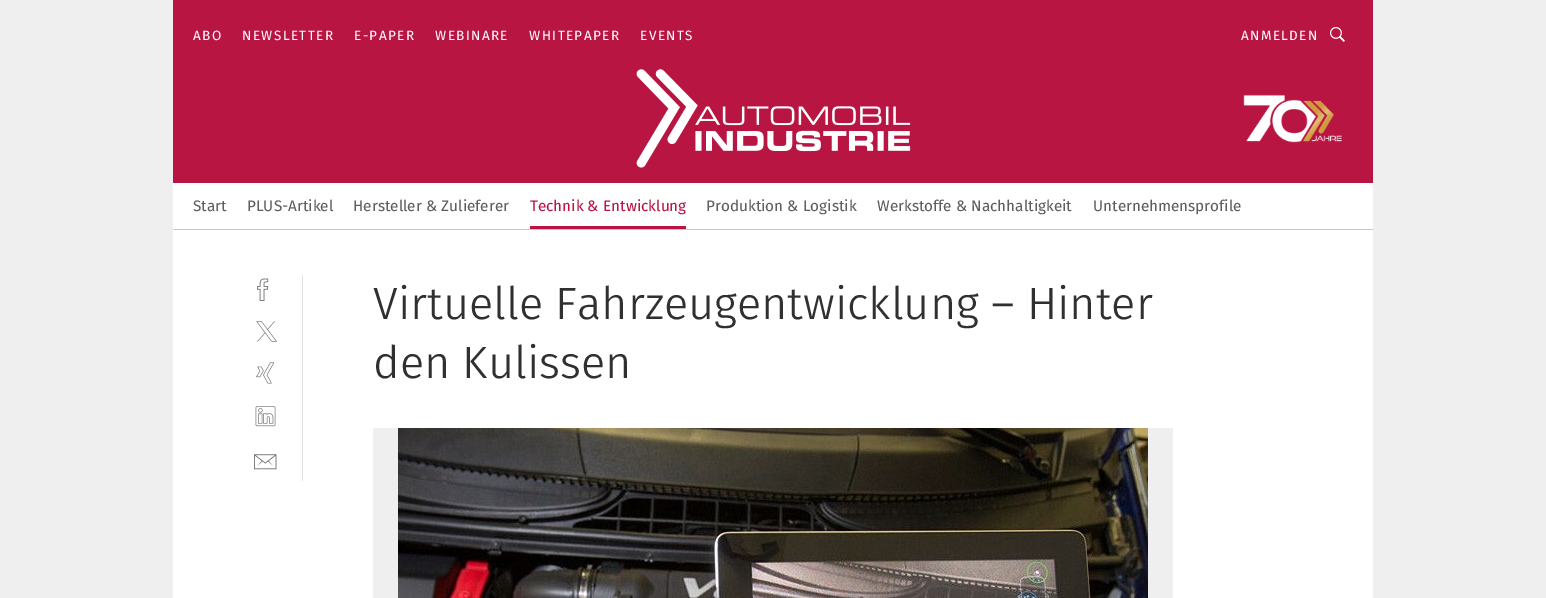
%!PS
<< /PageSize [1546 598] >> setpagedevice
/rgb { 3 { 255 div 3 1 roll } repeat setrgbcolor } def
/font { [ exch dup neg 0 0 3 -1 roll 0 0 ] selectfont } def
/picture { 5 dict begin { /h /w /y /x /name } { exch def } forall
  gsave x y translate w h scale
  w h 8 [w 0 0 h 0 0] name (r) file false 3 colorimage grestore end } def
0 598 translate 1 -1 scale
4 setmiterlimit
239 239 239 rgb
0 0 1546 598 rectfill
[
  [173 230 1200 368 255 255 255]
  [173 229 1200 1 198 198 198]
  [173 0 1200 183 184 21 67]
] { aload pop rgb rectfill } forall
(img/1.rgb) 1330 27 15 15 picture
(img/2.rgb) 636 69 275 99 picture
(img/3.rgb) 1243 94 100 49 picture
[
  [173 183 1200 46 255 255 255]
  [530 226 156 3 184 21 67]
  [302 275 1 206 226 226 226]
] { aload pop rgb rectfill } forall
(img/4.rgb) 257 278 12 23 picture
(img/5.rgb) 256 321 21 21 picture
(img/6.rgb) 256 362 19 22 picture
(img/7.rgb) 255 406 21 21 picture
(img/8.rgb) 254 454 23 16 picture
239 239 239 rgb
373 428 800 170 rectfill
(img/9.rgb) 398 428 750 170 picture
/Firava-Regular 13.5 font
255 255 255 rgb
193 40 moveto 1.4 0 (ABO) ashow
242 40 moveto 1.4 0 (NEWSLETTER) ashow
354 40 moveto 1.4 0 (E-PAPER) ashow
435 40 moveto 1.4 0 (WEBINARE) ashow
529 40 moveto 1.4 0 (WHITEPAPER) ashow
640 40 moveto 1.4 0 (EVENTS) ashow
1241 40 moveto 1.4 0 (ANMELDEN) ashow
/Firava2-Regular 15.25 font
94 94 94 rgb
[
  [(Start) 193 211]
  [(PLUS-Artikel) 247 211]
  [(Hersteller & Zulieferer) 353 211]
] { aload pop moveto show } forall
184 21 67 rgb
530 211 moveto (Technik & Entwicklung) show
94 94 94 rgb
[
  [(Produktion & Logistik) 706 211]
  [(Werkstoffe & Nachhaltigkeit) 877 211]
  [(Unternehmensprofile) 1093 211]
] { aload pop moveto show } forall
/Firava-Light 45 font
48 48 48 rgb
373 319 moveto (Virtuelle Fahrzeugentwicklung – Hinter) show
373 378 moveto (den Kulissen) show
showpage
